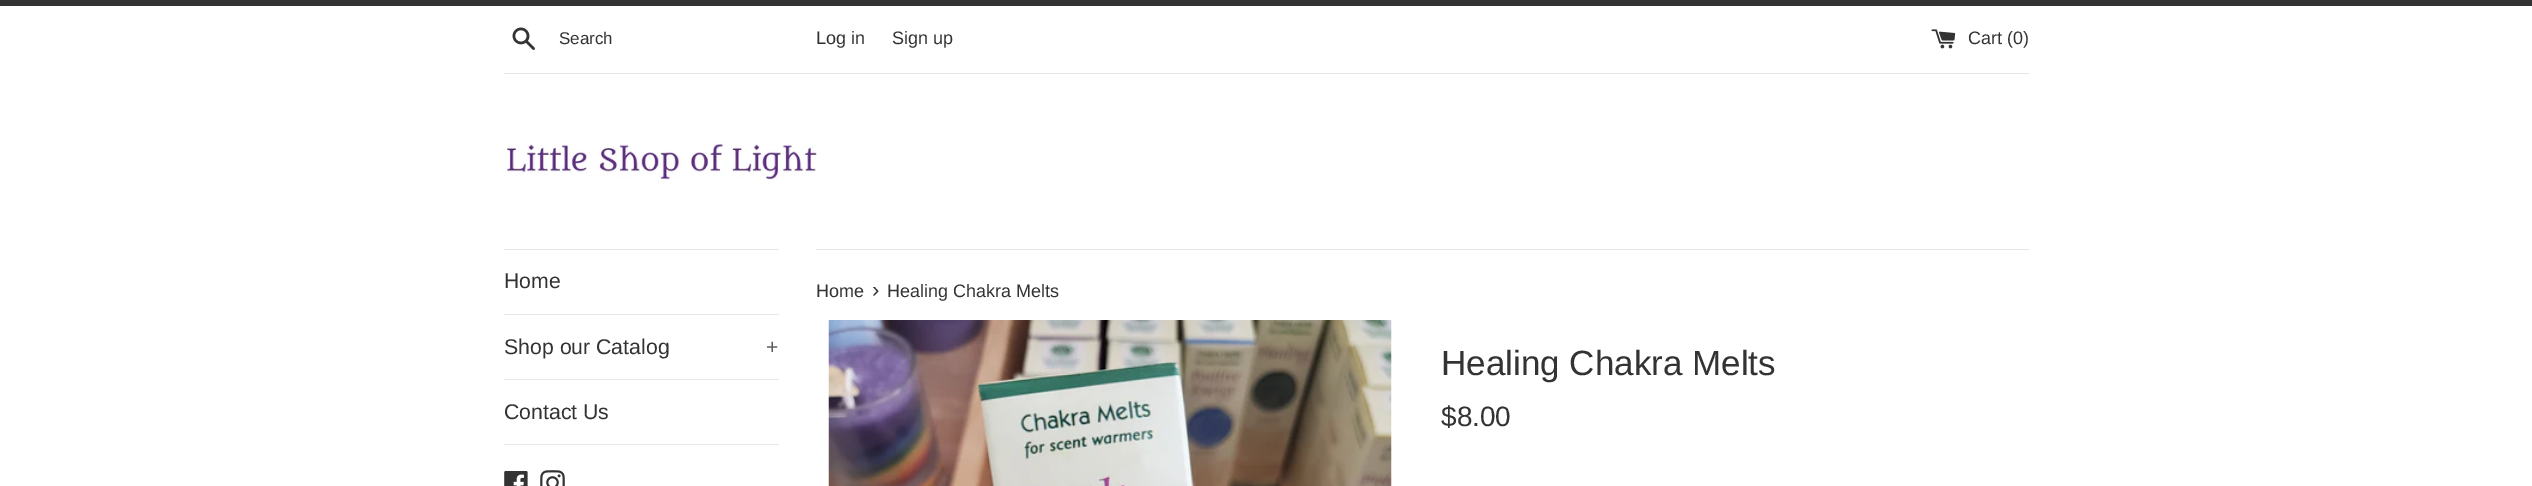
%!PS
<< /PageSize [2532 486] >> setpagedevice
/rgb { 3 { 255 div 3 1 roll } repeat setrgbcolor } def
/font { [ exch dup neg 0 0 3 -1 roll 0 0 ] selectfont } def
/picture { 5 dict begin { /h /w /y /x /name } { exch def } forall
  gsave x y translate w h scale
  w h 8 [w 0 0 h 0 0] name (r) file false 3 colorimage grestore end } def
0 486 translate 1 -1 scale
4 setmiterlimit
255 255 255 rgb
0 0 2532 486 rectfill
51 51 51 rgb
0 0 2532 6 rectfill
(img/1.rgb) 512 27 23 23 picture
(img/2.rgb) 1931 29 25 20 picture
232 232 232 rgb
504 73 1525 1 rectfill
(img/3.rgb) 506 141 311 39 picture
[
  [504 249 275 1 232 232 232]
  [504 314 275 1 232 232 232]
  [504 379 275 1 232 232 232]
  [504 444 275 1 232 232 232]
] { aload pop rgb rectfill } forall
(img/4.rgb) 504 471 24 15 picture
(img/5.rgb) 540 470 25 16 picture
816 249 1213 1 rectfill
(img/6.rgb) 828 320 564 166 picture
/LiberationSans-Regular 17 font
51 51 51 rgb
559 44 moveto (Search) show
/LiberationSans-Regular 18 font
[
  [(Log in) 816 44]
  [(Sign up) 892 44]
  [(Cart \(0\)) 1968 44]
] { aload pop moveto show } forall
/LiberationSans-Regular 21.25 font
504 288 moveto (Home) show
504 354 moveto (Shop our Catalog) show
92 92 92 rgb
766 354 moveto (+) show
51 51 51 rgb
504 419 moveto (Contact Us) show
/LiberationSans-Regular 18 font
816 297 moveto (Home) show
/LiberationSans-Regular 22 font
872 297 moveto (›) show
/LiberationSans-Regular 18 font
887 297 moveto (Healing Chakra Melts) show
/LiberationSans-Regular 35 font
1441 375 moveto (Healing Chakra Melts) show
/LiberationSans-Regular 28 font
1441 426 moveto ($8.00) show
showpage
